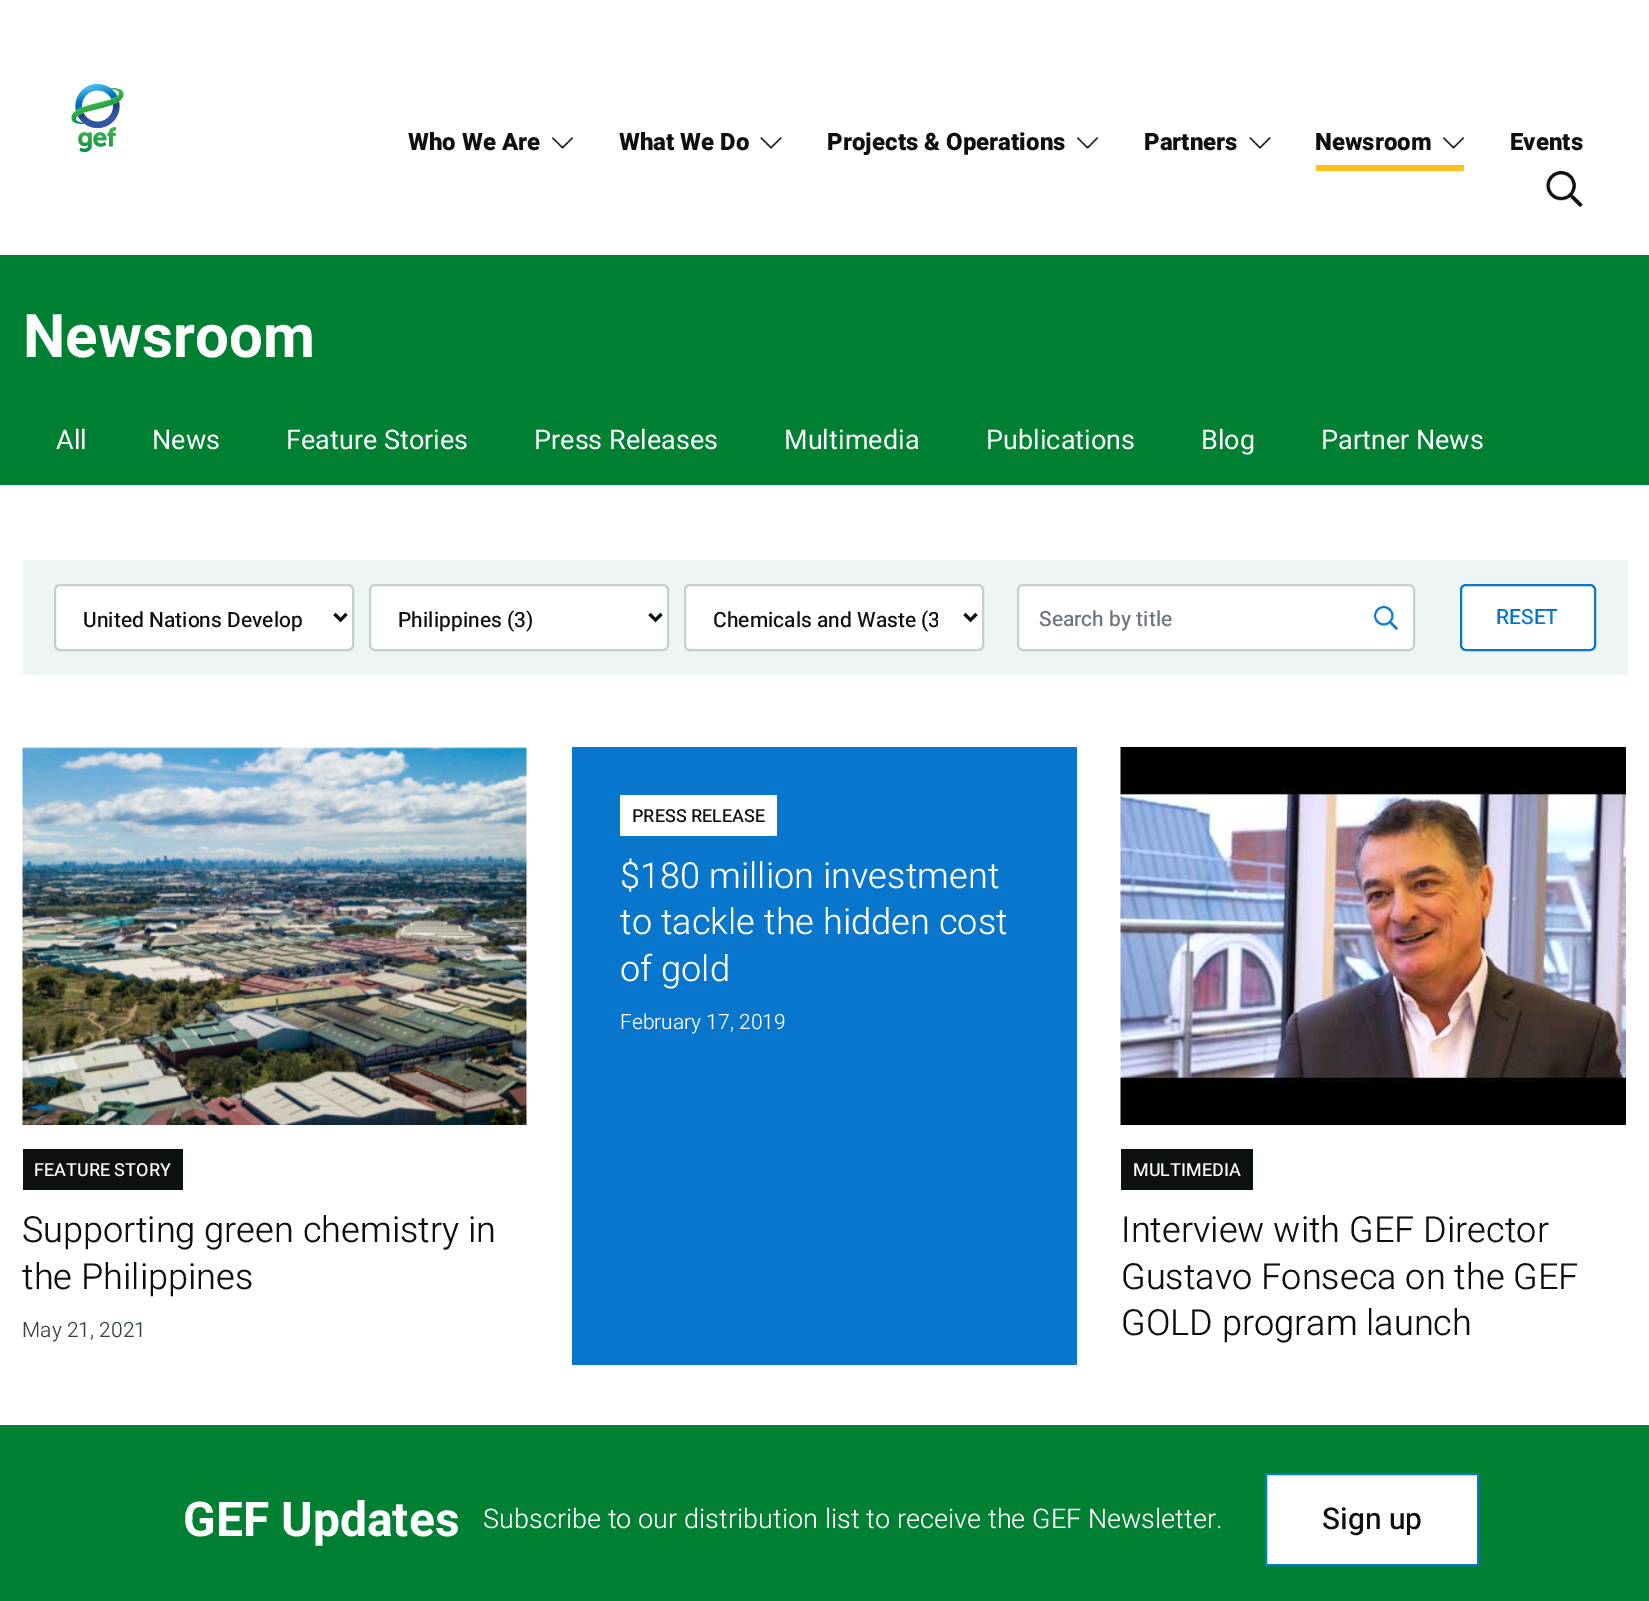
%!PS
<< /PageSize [1649 1601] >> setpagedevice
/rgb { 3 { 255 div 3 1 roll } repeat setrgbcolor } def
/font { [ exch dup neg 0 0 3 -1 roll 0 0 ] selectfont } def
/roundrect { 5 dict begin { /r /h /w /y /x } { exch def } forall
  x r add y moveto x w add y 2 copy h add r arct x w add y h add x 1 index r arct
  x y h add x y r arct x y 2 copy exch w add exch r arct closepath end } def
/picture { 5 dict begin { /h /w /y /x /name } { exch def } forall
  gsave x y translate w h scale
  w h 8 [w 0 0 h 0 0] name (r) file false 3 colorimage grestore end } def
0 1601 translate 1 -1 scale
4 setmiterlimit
255 255 255 rgb
0 0 1649 1601 rectfill
(img/1.rgb) 71 83 53 69 picture
(img/2.rgb) 552 137 21 12 picture
(img/3.rgb) 760 137 22 12 picture
(img/4.rgb) 1077 137 21 12 picture
(img/3.rgb) 1249 137 22 12 picture
(img/2.rgb) 1443 137 21 12 picture
255 192 25 rgb
1316 165 148 6 rectfill
(img/5.rgb) 1546 171 37 36 picture
0 128 51 rgb
0 255 1649 230 rectfill
239 244 244 rgb
23 560 1605 115 rectfill
255 255 255 rgb
55 585 298 65 5 roundrect gsave fill grestore
196 207 207 rgb
2 setlinewidth
stroke
12 17 15 rgb
3 setlinewidth
334.5 614 moveto 340.5 620 lineto 346.5 614 lineto stroke
255 255 255 rgb
370 585 298 65 5 roundrect gsave fill grestore
196 207 207 rgb
2 setlinewidth
stroke
12 17 15 rgb
3 setlinewidth
649.5 614 moveto 655.5 620 lineto 661.5 614 lineto stroke
255 255 255 rgb
685 585 298 65 5 roundrect gsave fill grestore
196 207 207 rgb
2 setlinewidth
stroke
12 17 15 rgb
3 setlinewidth
964.5 614 moveto 970.5 620 lineto 976.5 614 lineto stroke
255 255 255 rgb
1017 584 398 67 6 roundrect fill
(img/6.rgb) 1374 606 24 24 picture
196 207 207 rgb
2 setlinewidth
1018 585 396 65 5 roundrect stroke
255 255 255 rgb
1461 585 134 65 5 roundrect gsave fill grestore
8 118 205 rgb
stroke
572 747 505 618 rectfill
255 255 255 rgb
620 795 157 41 rectfill
(img/7.rgb) 22 747 505 378 picture
12 17 15 rgb
23 1149 160 41 rectfill
(img/8.rgb) 1120 747 506 378 picture
1121 1149 132 41 rectfill
0 128 51 rgb
0 1425 1649 176 rectfill
255 255 255 rgb
1266 1474 moveto 1478 1474 lineto 1478 1565 lineto 1266 1565 lineto closepath gsave fill grestore
8 118 205 rgb
stroke
/Heebo-ExtraBold 24 font
12 17 15 rgb
[
  [(Who We Are) 408 150]
  [(What We Do) 619 150]
  [(Projects & Operations) 827 150]
  [(Partners) 1144 150]
  [(Newsroom) 1315 150]
  [(Events) 1510 150]
] { aload pop moveto show } forall
/Heebo-Bold 60 font
255 255 255 rgb
23 357 moveto (Newsroom) show
/Heebo-Regular 27 font
[
  [(All) 56 449]
  [(News) 152 449]
  [(Feature Stories) 286 449]
  [(Press Releases) 534 449]
  [(Multimedia) 784 449]
  [(Publications) 986 449]
  [(Blog) 1201 449]
  [(Partner News) 1321 449]
] { aload pop moveto show } forall
/Heebo-Medium 21 font
12 17 15 rgb
83 627 moveto (United Nations Develop) show
398 627 moveto (Philippines \(3\)) show
gsave
713 603 225 35 rectclip
713 627 moveto (Chemicals and Waste \(3) show
grestore
108 117 125 rgb
1039 626 moveto (Search by title) show
8 118 205 rgb
1496 624 moveto (RESET) show
/Heebo-Medium 18 font
12 17 15 rgb
632 822 moveto (PRESS RELEASE) show
/Heebo-Light 36 font
255 255 255 rgb
[
  [($180 million investment) 620 888]
  [(to tackle the hidden cost) 620 934]
  [(of gold) 620 981]
] { aload pop moveto show } forall
/Heebo-Light 21 font
620 1029 moveto (February 17, 2019) show
/Heebo-Medium 18 font
34 1176 moveto (FEATURE STORY) show
/Heebo-Light 36 font
12 17 15 rgb
22 1242 moveto (Supporting green chemistry in) show
22 1289 moveto (the Philippines) show
/Heebo-Light 21 font
54 66 62 rgb
22 1337 moveto (May 21, 2021) show
/Heebo-Medium 18 font
255 255 255 rgb
1133 1176 moveto (MULTIMEDIA) show
/Heebo-Light 36 font
12 17 15 rgb
[
  [(Interview with GEF Director) 1121 1242]
  [(Gustavo Fonseca on the GEF) 1121 1289]
  [(GOLD program launch) 1121 1335]
] { aload pop moveto show } forall
/Heebo-Bold 48 font
255 255 255 rgb
183 1536 moveto (GEF Updates) show
/Heebo-Light 27 font
483 1528 moveto (Subscribe to our distribution list to receive the GEF Newsletter.) show
/Heebo-Medium 30 font
12 17 15 rgb
1322 1529 moveto (Sign up) show
showpage
